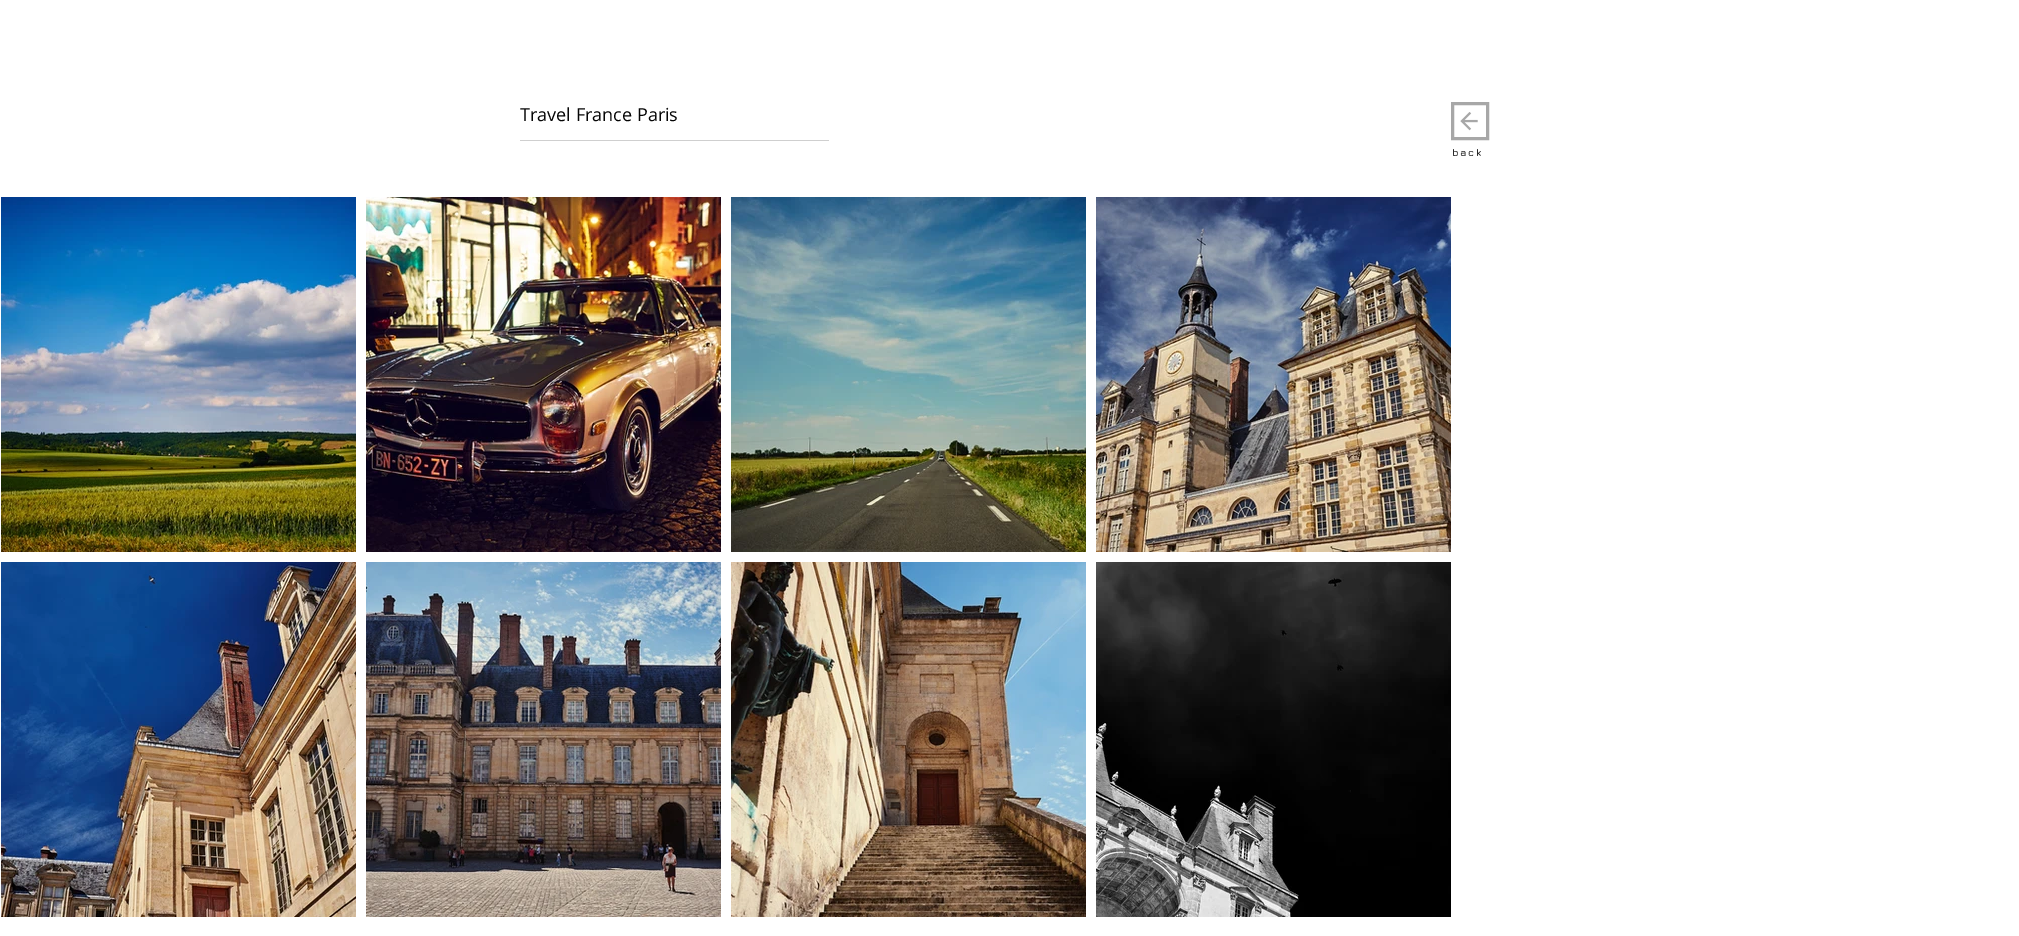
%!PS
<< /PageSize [2019 936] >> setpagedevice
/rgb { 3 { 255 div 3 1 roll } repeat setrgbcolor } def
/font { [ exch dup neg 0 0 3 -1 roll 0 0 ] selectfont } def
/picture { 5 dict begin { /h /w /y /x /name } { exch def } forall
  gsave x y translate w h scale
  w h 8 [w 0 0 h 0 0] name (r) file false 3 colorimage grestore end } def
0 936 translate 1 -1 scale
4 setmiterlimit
255 255 255 rgb
0 0 2019 936 rectfill
167 167 167 rgb
3 setlinewidth
1452.5 103.5 35 35 rectstroke
(img/1.rgb) 1460 112 18 19 picture
207 207 207 rgb
520 140 309 1 rectfill
(img/2.rgb) 1 197 355 355 picture
(img/3.rgb) 366 197 355 355 picture
(img/4.rgb) 731 197 355 355 picture
(img/5.rgb) 1096 197 355 355 picture
(img/6.rgb) 1 562 355 355 picture
(img/7.rgb) 366 562 355 355 picture
(img/8.rgb) 731 562 355 355 picture
(img/9.rgb) 1096 562 355 355 picture
/OpenSans-Regular 18 font
5 5 5 rgb
520 121 moveto (Travel France Paris) show
/Jura-Bold 10 font
41 41 41 rgb
1452 156 moveto 1.5 0 (back) ashow
showpage
